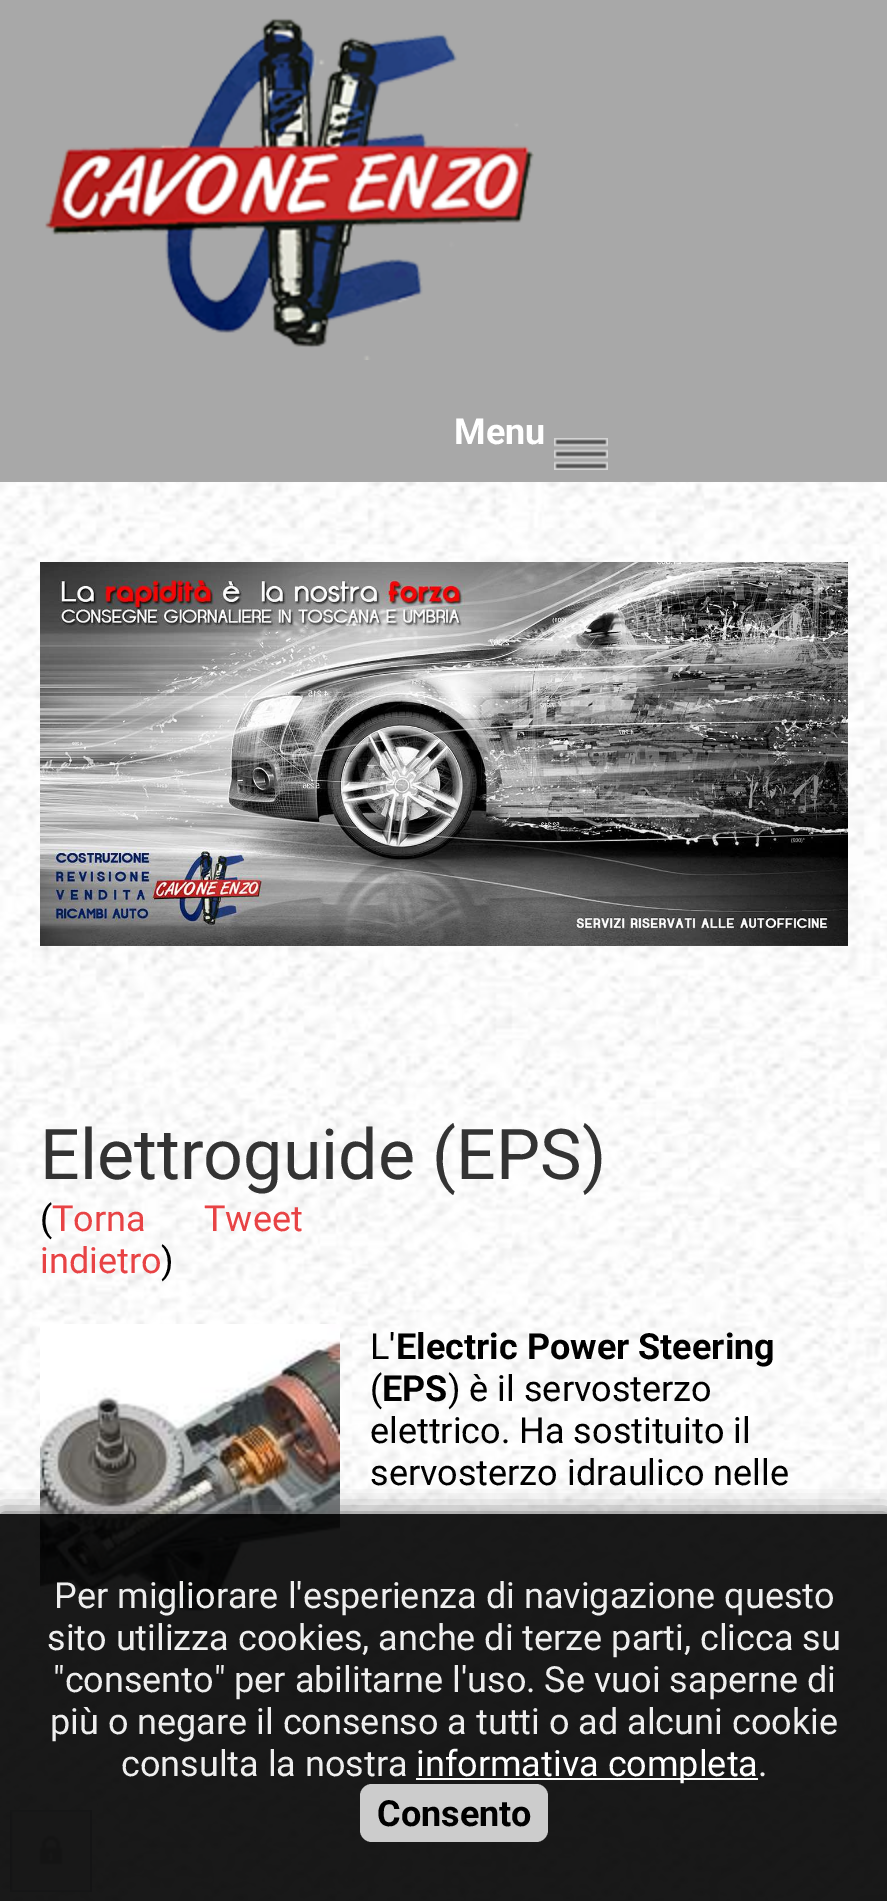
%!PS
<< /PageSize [887 1901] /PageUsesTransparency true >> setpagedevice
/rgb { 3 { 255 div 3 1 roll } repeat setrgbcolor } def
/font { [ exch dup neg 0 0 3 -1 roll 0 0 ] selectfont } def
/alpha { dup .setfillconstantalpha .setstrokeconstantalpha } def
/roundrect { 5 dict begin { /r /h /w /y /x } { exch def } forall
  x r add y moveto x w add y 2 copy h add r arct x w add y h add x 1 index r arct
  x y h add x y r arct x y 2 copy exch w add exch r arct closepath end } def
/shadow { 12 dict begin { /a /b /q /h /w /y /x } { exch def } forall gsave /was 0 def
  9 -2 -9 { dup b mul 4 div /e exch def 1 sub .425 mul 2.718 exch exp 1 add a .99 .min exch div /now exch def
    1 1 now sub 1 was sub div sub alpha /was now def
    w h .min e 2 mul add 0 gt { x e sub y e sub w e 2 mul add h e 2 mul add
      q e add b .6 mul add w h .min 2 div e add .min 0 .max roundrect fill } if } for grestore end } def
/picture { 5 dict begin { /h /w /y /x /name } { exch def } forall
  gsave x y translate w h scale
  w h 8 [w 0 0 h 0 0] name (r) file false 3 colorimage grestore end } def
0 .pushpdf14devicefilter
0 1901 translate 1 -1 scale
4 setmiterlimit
255 255 255 rgb
0 0 887 1901 rectfill
(img/1.rgb) 0 482 887 1419 picture
168 168 168 rgb
0 0 887 482 rectfill
(img/2.rgb) 45 18 489 342 picture
(img/3.rgb) 554 438 54 32 picture
(img/4.rgb) 40 562 808 384 picture
(img/5.rgb) 40 1324 300 300 picture
206 209 212 rgb
90 1810 2 82 rectfill
(img/6.rgb) 10 1810 80 82 picture
gsave
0 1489 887 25 rectclip
102 102 102 rgb
0 1514 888 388 0 12 1 shadow
grestore
0.9 alpha
0 0 0 rgb
0 1514 887 387 rectfill
1 alpha
255 255 255 rgb
416 1778 342 2 rectfill
204 204 204 rgb
360 1784 188 58 12 roundrect fill
/Roboto-Bold 36 font
255 255 255 rgb
454 444 moveto (Menu) show
/Roboto-Regular 70 font
51 51 51 rgb
40 1179 moveto (Elettroguide \(EPS\)) show
/Roboto-Regular 36 font
0 0 0 rgb
40 1231 moveto (\() show
232 67 69 rgb
52 1231 moveto (Torna) show
40 1273 moveto (indietro) show
0 0 0 rgb
161 1273 moveto (\)) show
232 67 69 rgb
204 1231 moveto (Tweet) show
0 0 0 rgb
370 1359 moveto (L') show
/Roboto-Bold 36 font
396 1359 moveto (Electric Power Steering) show
/Roboto-Regular 36 font
370 1401 moveto (\() show
/Roboto-Bold 36 font
382 1401 moveto (EPS) show
/Roboto-Regular 36 font
[
  [(\) è il servosterzo) 448 1401]
  [(elettrico. Ha sostituito il) 370 1443]
  [(servosterzo idraulico nelle) 370 1485]
] { aload pop moveto show } forall
238 238 238 rgb
[
  [(Per migliorare l'esperienza di navigazione questo) 54 1608]
  [(sito utilizza cookies, anche di terze parti, clicca su) 47 1650]
  [("consento" per abilitarne l'uso. Se vuoi saperne di) 53 1692]
  [(più o negare il consenso a tutti o ad alcuni cookie) 50 1734]
  [(consulta la nostra) 121 1776]
] { aload pop moveto show } forall
255 255 255 rgb
416 1776 moveto (informativa completa) show
238 238 238 rgb
758 1776 moveto (.) show
/Roboto-Bold 36 font
0 0 0 rgb
377 1826 moveto (Consento) show
.poppdf14devicefilter showpage
